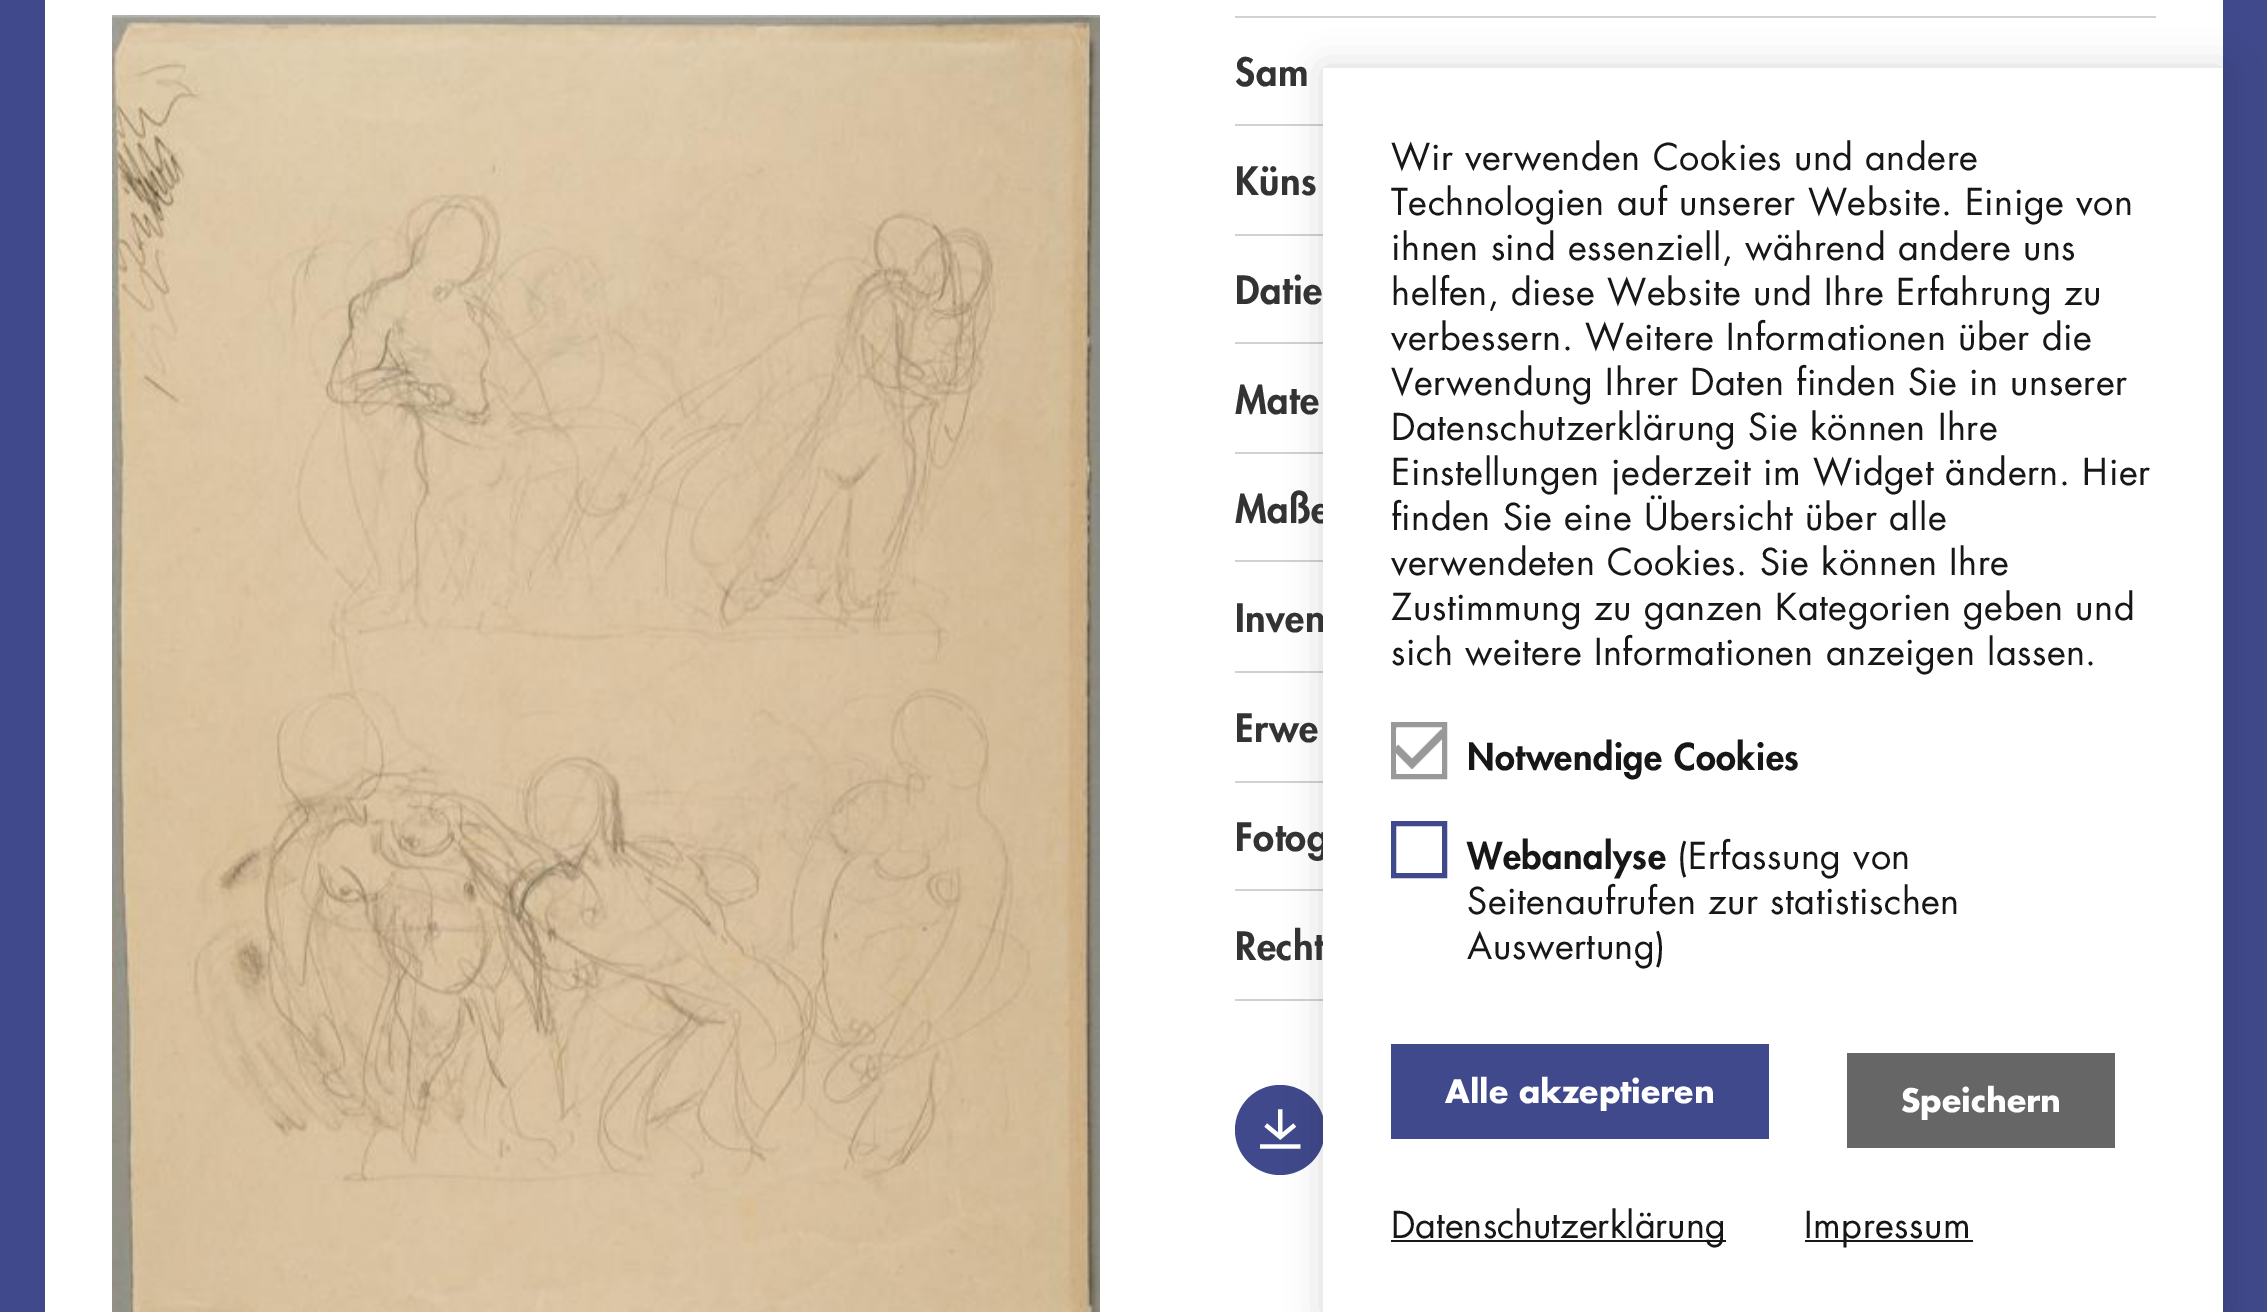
%!PS
<< /PageSize [2267 1312] /PageUsesTransparency true >> setpagedevice
/rgb { 3 { 255 div 3 1 roll } repeat setrgbcolor } def
/font { [ exch dup neg 0 0 3 -1 roll 0 0 ] selectfont } def
/alpha { dup .setfillconstantalpha .setstrokeconstantalpha } def
/circle { newpath 0 360 arc closepath } def
/roundrect { 5 dict begin { /r /h /w /y /x } { exch def } forall
  x r add y moveto x w add y 2 copy h add r arct x w add y h add x 1 index r arct
  x y h add x y r arct x y 2 copy exch w add exch r arct closepath end } def
/shadow { 12 dict begin { /a /b /q /h /w /y /x } { exch def } forall gsave /was 0 def
  9 -2 -9 { dup b mul 4 div /e exch def 1 sub .425 mul 2.718 exch exp 1 add a .99 .min exch div /now exch def
    1 1 now sub 1 was sub div sub alpha /was now def
    w h .min e 2 mul add 0 gt { x e sub y e sub w e 2 mul add h e 2 mul add
      q e add b .6 mul add w h .min 2 div e add .min 0 .max roundrect fill } if } for grestore end } def
/picture { 5 dict begin { /h /w /y /x /name } { exch def } forall
  gsave x y translate w h scale
  w h 8 [w 0 0 h 0 0] name (r) file false 3 colorimage grestore end } def
0 .pushpdf14devicefilter
0 1312 translate 1 -1 scale
4 setmiterlimit
63 73 139 rgb
0 0 2267 1312 rectfill
255 255 255 rgb
45 0 2178 1312 rectfill
(img/1.rgb) 112 15 988 1297 picture
[
  [1235 16 921 2 209 209 209]
  [1235 124 88 2 209 209 209]
  [1235 234 88 2 209 209 209]
  [1235 342 88 2 209 209 209]
  [1235 452 88 2 209 209 209]
  [1235 560 88 2 209 209 209]
  [1235 671 88 2 209 209 209]
  [1235 781 88 2 209 209 209]
  [1235 889 88 2 209 209 209]
  [1235 999 88 2 209 209 209]
] { aload pop rgb rectfill } forall
63 73 139 rgb
1280 1130 45 circle fill
(img/2.rgb) 1260 1109 41 40 picture
0 0 0 rgb
1323 68 900 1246 0 18 0.15 shadow
/Futura-Black 38 font
51 51 51 rgb
1235 86 moveto 0.55 0 (Sam) ashow
1235 195 moveto 0.55 0 (Küns) ashow
1235 304 moveto 0.55 0 (Datie) ashow
1235 414 moveto 0.55 0 (Mate) ashow
1235 523 moveto 0.55 0 (Maße) ashow
1235 632 moveto 0.55 0 (Inven) ashow
1235 742 moveto 0.55 0 (Erwe) ashow
1235 851 moveto 0.55 0 (Fotog) ashow
1235 960 moveto 0.55 0 (Recht) ashow
255 255 255 rgb
1323 68 900 1244 rectfill
/Futura-Regular 36 font
23 23 23 rgb
1391 170 moveto 0.55 0 (Wir verwenden Cookies und andere) ashow
1391 215 moveto 0.55 0 (Technologien auf unserer Website. Einige von) ashow
1391 260 moveto 0.55 0 (ihnen sind essenziell, während andere uns) ashow
1391 305 moveto 0.55 0 (helfen, diese Website und Ihre Erfahrung zu) ashow
1391 350 moveto 0.55 0 (verbessern. Weitere Informationen über die) ashow
1391 395 moveto 0.55 0 (Verwendung Ihrer Daten finden Sie in unserer) ashow
1391 440 moveto 0.55 0 (Datenschutzerklärung Sie können Ihre) ashow
1391 485 moveto 0.55 0 (Einstellungen jederzeit im Widget ändern. Hier) ashow
1391 530 moveto 0.55 0 (finden Sie eine Übersicht über alle) ashow
1391 575 moveto 0.55 0 (verwendeten Cookies. Sie können Ihre) ashow
1391 620 moveto 0.55 0 (Zustimmung zu ganzen Kategorien geben und) ashow
1391 665 moveto 0.55 0 (sich weitere Informationen anzeigen lassen.) ashow
153 153 153 rgb
5 setlinewidth
1393.5 724.5 51 52 rectstroke
(img/3.rgb) 1396 729 46 41 picture
/Futura-Black 36 font
23 23 23 rgb
1467 770 moveto 0.55 0 (Notwendige Cookies) ashow
63 73 139 rgb
1393.5 823.5 51 52 rectstroke
23 23 23 rgb
1467 869 moveto 0.55 0 (Webanalyse) ashow
/Futura-Regular 36 font
1677 869 moveto 0.55 0 (\(Erfassung von) ashow
1467 914 moveto 0.55 0 (Seitenaufrufen zur statistischen) ashow
1467 959 moveto 0.55 0 (Auswertung\)) ashow
63 73 139 rgb
1391 1044 378 95 rectfill
/Futura-Bold 31.5 font
255 255 255 rgb
1445 1103 moveto (Alle akzeptieren) show
102 102 102 rgb
1847 1053 268 95 rectfill
255 255 255 rgb
1901 1112 moveto (Speichern) show
23 23 23 rgb
1391 1240 335 2 rectfill
/Futura-Regular 36 font
1391 1238 moveto (Datenschutzerklärung) show
1805 1240 168 2 rectfill
1804 1238 moveto 0.55 0 (Impressum) ashow
.poppdf14devicefilter showpage
